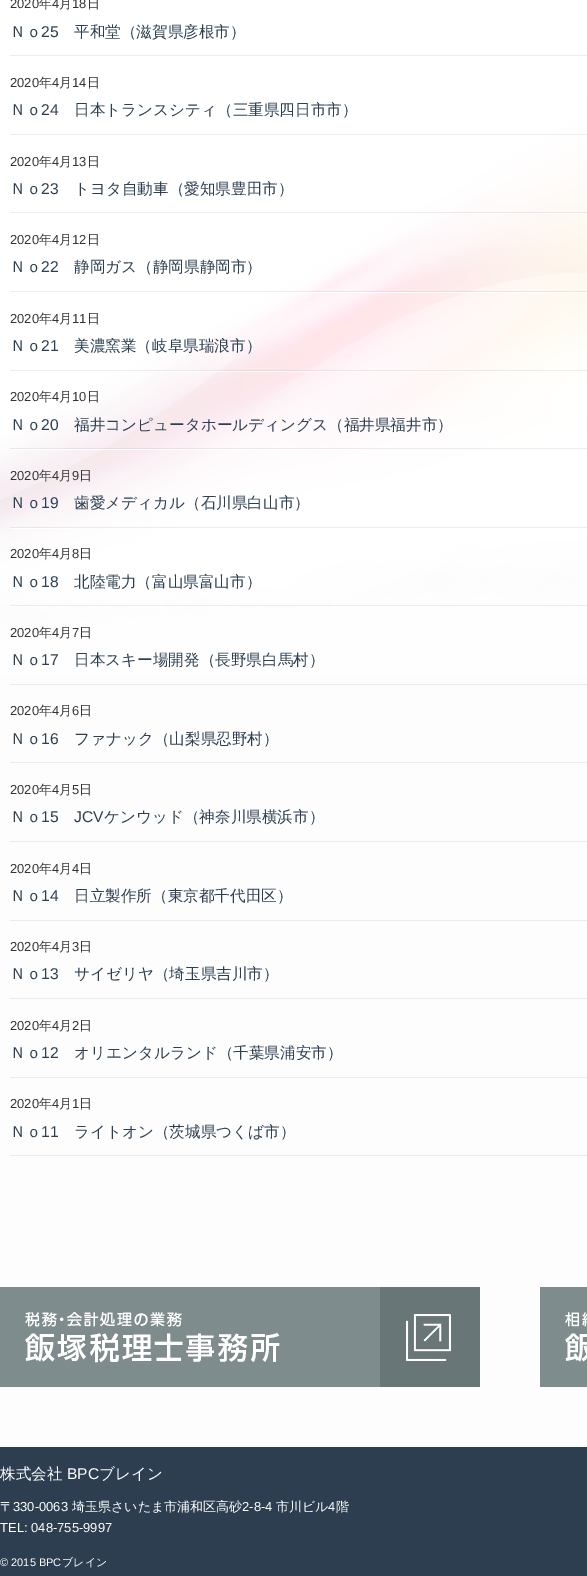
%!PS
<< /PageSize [587 1576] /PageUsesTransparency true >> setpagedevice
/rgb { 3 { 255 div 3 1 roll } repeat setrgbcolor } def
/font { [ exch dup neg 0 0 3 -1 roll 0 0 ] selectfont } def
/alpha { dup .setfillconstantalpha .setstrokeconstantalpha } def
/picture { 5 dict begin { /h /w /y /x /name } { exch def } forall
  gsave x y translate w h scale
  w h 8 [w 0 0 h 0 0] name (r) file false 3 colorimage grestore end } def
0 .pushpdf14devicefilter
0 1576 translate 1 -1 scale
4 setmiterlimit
253 253 253 rgb
0 0 587 1576 rectfill
(img/1.rgb) 0 0 587 676 picture
[
  [10 55 577 1 237 237 237]
  [10 134 577 1 237 237 237]
] { aload pop rgb rectfill } forall
0.07 alpha
[
  [10 212 577 1 0 0 0]
] { aload pop rgb rectfill } forall
1 alpha
[
  [441 213 146 1 255 255 255]
] { aload pop rgb rectfill } forall
0.07 alpha
[
  [10 291 577 1 0 0 0]
] { aload pop rgb rectfill } forall
1 alpha
[
  [293 292 294 1 255 255 255]
] { aload pop rgb rectfill } forall
0.07 alpha
[
  [10 370 577 1 0 0 0]
] { aload pop rgb rectfill } forall
1 alpha
[
  [147 371 440 1 255 255 255]
] { aload pop rgb rectfill } forall
0.07 alpha
[
  [10 448 577 1 0 0 0]
] { aload pop rgb rectfill } forall
1 alpha
[
  [10 449 358 1 255 255 255]
] { aload pop rgb rectfill } forall
0.07 alpha
[
  [10 527 577 1 0 0 0]
] { aload pop rgb rectfill } forall
1 alpha
[
  [10 528 76 1 255 255 255]
  [10 605 577 1 236 236 236]
  [10 606 20 1 255 255 255]
  [10 684 577 1 236 236 236]
  [10 762 577 1 236 236 236]
  [10 841 577 1 236 236 236]
  [10 920 577 1 236 236 236]
  [10 998 577 1 236 236 236]
  [10 1077 577 1 236 236 236]
  [10 1155 577 1 236 236 236]
] { aload pop rgb rectfill } forall
(img/2.rgb) 0 1287 480 100 picture
(img/3.rgb) 540 1287 47 100 picture
44 62 80 rgb
0 1447 587 129 rectfill
/LiberationSans-Regular 13 font
51 51 51 rgb
10 8 moveto (2020) show
/WenQuanYiZenHei-Medium 13 font
39 8 moveto (年) show
/LiberationSans-Regular 13 font
52 8 moveto (4) show
/WenQuanYiZenHei-Medium 13 font
59 8 moveto (月) show
/LiberationSans-Regular 13 font
72 8 moveto (18) show
/WenQuanYiZenHei-Medium 13 font
87 8 moveto (日) show
/WenQuanYiZenHei-Medium 15.6 font
44 62 80 rgb
10 37 moveto (Ｎｏ) show
/LiberationSans-Regular 15.6 font
41 37 moveto (25) show
/WenQuanYiZenHei-Medium 15.6 font
74 37 moveto (平和堂（滋賀県彦根市）) show
/LiberationSans-Regular 13 font
51 51 51 rgb
10 87 moveto (2020) show
/WenQuanYiZenHei-Medium 13 font
39 87 moveto (年) show
/LiberationSans-Regular 13 font
52 87 moveto (4) show
/WenQuanYiZenHei-Medium 13 font
59 87 moveto (月) show
/LiberationSans-Regular 13 font
72 87 moveto (14) show
/WenQuanYiZenHei-Medium 13 font
87 87 moveto (日) show
/WenQuanYiZenHei-Medium 15.6 font
44 62 80 rgb
10 115 moveto (Ｎｏ) show
/LiberationSans-Regular 15.6 font
41 115 moveto (24) show
/WenQuanYiZenHei-Medium 15.6 font
74 115 moveto (日本トランスシティ（三重県四日市市）) show
/LiberationSans-Regular 13 font
51 51 51 rgb
10 166 moveto (2020) show
/WenQuanYiZenHei-Medium 13 font
39 166 moveto (年) show
/LiberationSans-Regular 13 font
52 166 moveto (4) show
/WenQuanYiZenHei-Medium 13 font
59 166 moveto (月) show
/LiberationSans-Regular 13 font
72 166 moveto (13) show
/WenQuanYiZenHei-Medium 13 font
87 166 moveto (日) show
/WenQuanYiZenHei-Medium 15.6 font
44 62 80 rgb
10 194 moveto (Ｎｏ) show
/LiberationSans-Regular 15.6 font
41 194 moveto (23) show
/WenQuanYiZenHei-Medium 15.6 font
74 194 moveto (トヨタ自動車（愛知県豊田市）) show
/LiberationSans-Regular 13 font
51 51 51 rgb
10 244 moveto (2020) show
/WenQuanYiZenHei-Medium 13 font
39 244 moveto (年) show
/LiberationSans-Regular 13 font
52 244 moveto (4) show
/WenQuanYiZenHei-Medium 13 font
59 244 moveto (月) show
/LiberationSans-Regular 13 font
72 244 moveto (12) show
/WenQuanYiZenHei-Medium 13 font
87 244 moveto (日) show
/WenQuanYiZenHei-Medium 15.6 font
44 62 80 rgb
10 272 moveto (Ｎｏ) show
/LiberationSans-Regular 15.6 font
41 272 moveto (22) show
/WenQuanYiZenHei-Medium 15.6 font
74 272 moveto (静岡ガス（静岡県静岡市）) show
/LiberationSans-Regular 13 font
51 51 51 rgb
10 323 moveto (2020) show
/WenQuanYiZenHei-Medium 13 font
39 323 moveto (年) show
/LiberationSans-Regular 13 font
52 323 moveto (4) show
/WenQuanYiZenHei-Medium 13 font
59 323 moveto (月) show
/LiberationSans-Regular 13 font
72 323 moveto (11) show
/WenQuanYiZenHei-Medium 13 font
87 323 moveto (日) show
/WenQuanYiZenHei-Medium 15.6 font
44 62 80 rgb
10 351 moveto (Ｎｏ) show
/LiberationSans-Regular 15.6 font
41 351 moveto (21) show
/WenQuanYiZenHei-Medium 15.6 font
74 351 moveto (美濃窯業（岐阜県瑞浪市）) show
/LiberationSans-Regular 13 font
51 51 51 rgb
10 401 moveto (2020) show
/WenQuanYiZenHei-Medium 13 font
39 401 moveto (年) show
/LiberationSans-Regular 13 font
52 401 moveto (4) show
/WenQuanYiZenHei-Medium 13 font
59 401 moveto (月) show
/LiberationSans-Regular 13 font
72 401 moveto (10) show
/WenQuanYiZenHei-Medium 13 font
87 401 moveto (日) show
/WenQuanYiZenHei-Medium 15.6 font
44 62 80 rgb
10 430 moveto (Ｎｏ) show
/LiberationSans-Regular 15.6 font
41 430 moveto (20) show
/WenQuanYiZenHei-Medium 15.6 font
74 430 moveto (福井コンピュータホールディングス（福井県福井市）) show
/LiberationSans-Regular 13 font
51 51 51 rgb
10 480 moveto (2020) show
/WenQuanYiZenHei-Medium 13 font
39 480 moveto (年) show
/LiberationSans-Regular 13 font
52 480 moveto (4) show
/WenQuanYiZenHei-Medium 13 font
59 480 moveto (月) show
/LiberationSans-Regular 13 font
72 480 moveto (9) show
/WenQuanYiZenHei-Medium 13 font
79 480 moveto (日) show
/WenQuanYiZenHei-Medium 15.6 font
44 62 80 rgb
10 508 moveto (Ｎｏ) show
/LiberationSans-Regular 15.6 font
41 508 moveto (19) show
/WenQuanYiZenHei-Medium 15.6 font
74 508 moveto (歯愛メディカル（石川県白山市）) show
/LiberationSans-Regular 13 font
51 51 51 rgb
10 558 moveto (2020) show
/WenQuanYiZenHei-Medium 13 font
39 558 moveto (年) show
/LiberationSans-Regular 13 font
52 558 moveto (4) show
/WenQuanYiZenHei-Medium 13 font
59 558 moveto (月) show
/LiberationSans-Regular 13 font
72 558 moveto (8) show
/WenQuanYiZenHei-Medium 13 font
79 558 moveto (日) show
/WenQuanYiZenHei-Medium 15.6 font
44 62 80 rgb
10 587 moveto (Ｎｏ) show
/LiberationSans-Regular 15.6 font
41 587 moveto (18) show
/WenQuanYiZenHei-Medium 15.6 font
74 587 moveto (北陸電力（富山県富山市）) show
/LiberationSans-Regular 13 font
51 51 51 rgb
10 637 moveto (2020) show
/WenQuanYiZenHei-Medium 13 font
39 637 moveto (年) show
/LiberationSans-Regular 13 font
52 637 moveto (4) show
/WenQuanYiZenHei-Medium 13 font
59 637 moveto (月) show
/LiberationSans-Regular 13 font
72 637 moveto (7) show
/WenQuanYiZenHei-Medium 13 font
79 637 moveto (日) show
/WenQuanYiZenHei-Medium 15.6 font
44 62 80 rgb
10 665 moveto (Ｎｏ) show
/LiberationSans-Regular 15.6 font
41 665 moveto (17) show
/WenQuanYiZenHei-Medium 15.6 font
74 665 moveto (日本スキー場開発（長野県白馬村）) show
/LiberationSans-Regular 13 font
51 51 51 rgb
10 715 moveto (2020) show
/WenQuanYiZenHei-Medium 13 font
39 715 moveto (年) show
/LiberationSans-Regular 13 font
52 715 moveto (4) show
/WenQuanYiZenHei-Medium 13 font
59 715 moveto (月) show
/LiberationSans-Regular 13 font
72 715 moveto (6) show
/WenQuanYiZenHei-Medium 13 font
79 715 moveto (日) show
/WenQuanYiZenHei-Medium 15.6 font
44 62 80 rgb
10 744 moveto (Ｎｏ) show
/LiberationSans-Regular 15.6 font
41 744 moveto (16) show
/WenQuanYiZenHei-Medium 15.6 font
74 744 moveto (ファナック（山梨県忍野村）) show
/LiberationSans-Regular 13 font
51 51 51 rgb
10 794 moveto (2020) show
/WenQuanYiZenHei-Medium 13 font
39 794 moveto (年) show
/LiberationSans-Regular 13 font
52 794 moveto (4) show
/WenQuanYiZenHei-Medium 13 font
59 794 moveto (月) show
/LiberationSans-Regular 13 font
72 794 moveto (5) show
/WenQuanYiZenHei-Medium 13 font
79 794 moveto (日) show
/WenQuanYiZenHei-Medium 15.6 font
44 62 80 rgb
10 822 moveto (Ｎｏ) show
/LiberationSans-Regular 15.6 font
41 822 moveto (15) show
74 822 moveto (JCV) show
/WenQuanYiZenHei-Medium 15.6 font
104 822 moveto (ケンウッド（神奈川県横浜市）) show
/LiberationSans-Regular 13 font
51 51 51 rgb
10 873 moveto (2020) show
/WenQuanYiZenHei-Medium 13 font
39 873 moveto (年) show
/LiberationSans-Regular 13 font
52 873 moveto (4) show
/WenQuanYiZenHei-Medium 13 font
59 873 moveto (月) show
/LiberationSans-Regular 13 font
72 873 moveto (4) show
/WenQuanYiZenHei-Medium 13 font
79 873 moveto (日) show
/WenQuanYiZenHei-Medium 15.6 font
44 62 80 rgb
10 901 moveto (Ｎｏ) show
/LiberationSans-Regular 15.6 font
41 901 moveto (14) show
/WenQuanYiZenHei-Medium 15.6 font
74 901 moveto (日立製作所（東京都千代田区）) show
/LiberationSans-Regular 13 font
51 51 51 rgb
10 951 moveto (2020) show
/WenQuanYiZenHei-Medium 13 font
39 951 moveto (年) show
/LiberationSans-Regular 13 font
52 951 moveto (4) show
/WenQuanYiZenHei-Medium 13 font
59 951 moveto (月) show
/LiberationSans-Regular 13 font
72 951 moveto (3) show
/WenQuanYiZenHei-Medium 13 font
79 951 moveto (日) show
/WenQuanYiZenHei-Medium 15.6 font
44 62 80 rgb
10 979 moveto (Ｎｏ) show
/LiberationSans-Regular 15.6 font
41 979 moveto (13) show
/WenQuanYiZenHei-Medium 15.6 font
74 979 moveto (サイゼリヤ（埼玉県吉川市）) show
/LiberationSans-Regular 13 font
51 51 51 rgb
10 1030 moveto (2020) show
/WenQuanYiZenHei-Medium 13 font
39 1030 moveto (年) show
/LiberationSans-Regular 13 font
52 1030 moveto (4) show
/WenQuanYiZenHei-Medium 13 font
59 1030 moveto (月) show
/LiberationSans-Regular 13 font
72 1030 moveto (2) show
/WenQuanYiZenHei-Medium 13 font
79 1030 moveto (日) show
/WenQuanYiZenHei-Medium 15.6 font
44 62 80 rgb
10 1058 moveto (Ｎｏ) show
/LiberationSans-Regular 15.6 font
41 1058 moveto (12) show
/WenQuanYiZenHei-Medium 15.6 font
74 1058 moveto (オリエンタルランド（千葉県浦安市）) show
/LiberationSans-Regular 13 font
51 51 51 rgb
10 1108 moveto (2020) show
/WenQuanYiZenHei-Medium 13 font
39 1108 moveto (年) show
/LiberationSans-Regular 13 font
52 1108 moveto (4) show
/WenQuanYiZenHei-Medium 13 font
59 1108 moveto (月) show
/LiberationSans-Regular 13 font
72 1108 moveto (1) show
/WenQuanYiZenHei-Medium 13 font
79 1108 moveto (日) show
/WenQuanYiZenHei-Medium 15.6 font
44 62 80 rgb
10 1137 moveto (Ｎｏ) show
/LiberationSans-Regular 15.6 font
41 1137 moveto (11) show
/WenQuanYiZenHei-Medium 15.6 font
74 1137 moveto (ライトオン（茨城県つくば市）) show
255 255 255 rgb
0 1479 moveto (株式会社) show
/LiberationSans-Regular 15.6 font
67 1479 moveto (BPC) show
/WenQuanYiZenHei-Medium 15.6 font
99 1479 moveto (ブレイン) show
/WenQuanYiZenHei-Medium 13 font
0 1511 moveto (〒) show
/LiberationSans-Regular 13 font
13 1511 moveto (330-0063) show
/WenQuanYiZenHei-Medium 13 font
72 1511 moveto (埼玉県さいたま市浦和区高砂) show
/LiberationSans-Regular 13 font
242 1511 moveto (2-8-4) show
/WenQuanYiZenHei-Medium 13 font
276 1511 moveto (市川ビル) show
/LiberationSans-Regular 13 font
328 1511 moveto (4) show
/WenQuanYiZenHei-Medium 13 font
336 1511 moveto (階) show
/LiberationSans-Regular 13 font
0 1532 moveto (TEL: 048-755-9997) show
/LiberationSans-Regular 11 font
0 1566 moveto (© 2015 BPC) show
/WenQuanYiZenHei-Medium 11 font
62 1566 moveto (ブレイン) show
.poppdf14devicefilter showpage
